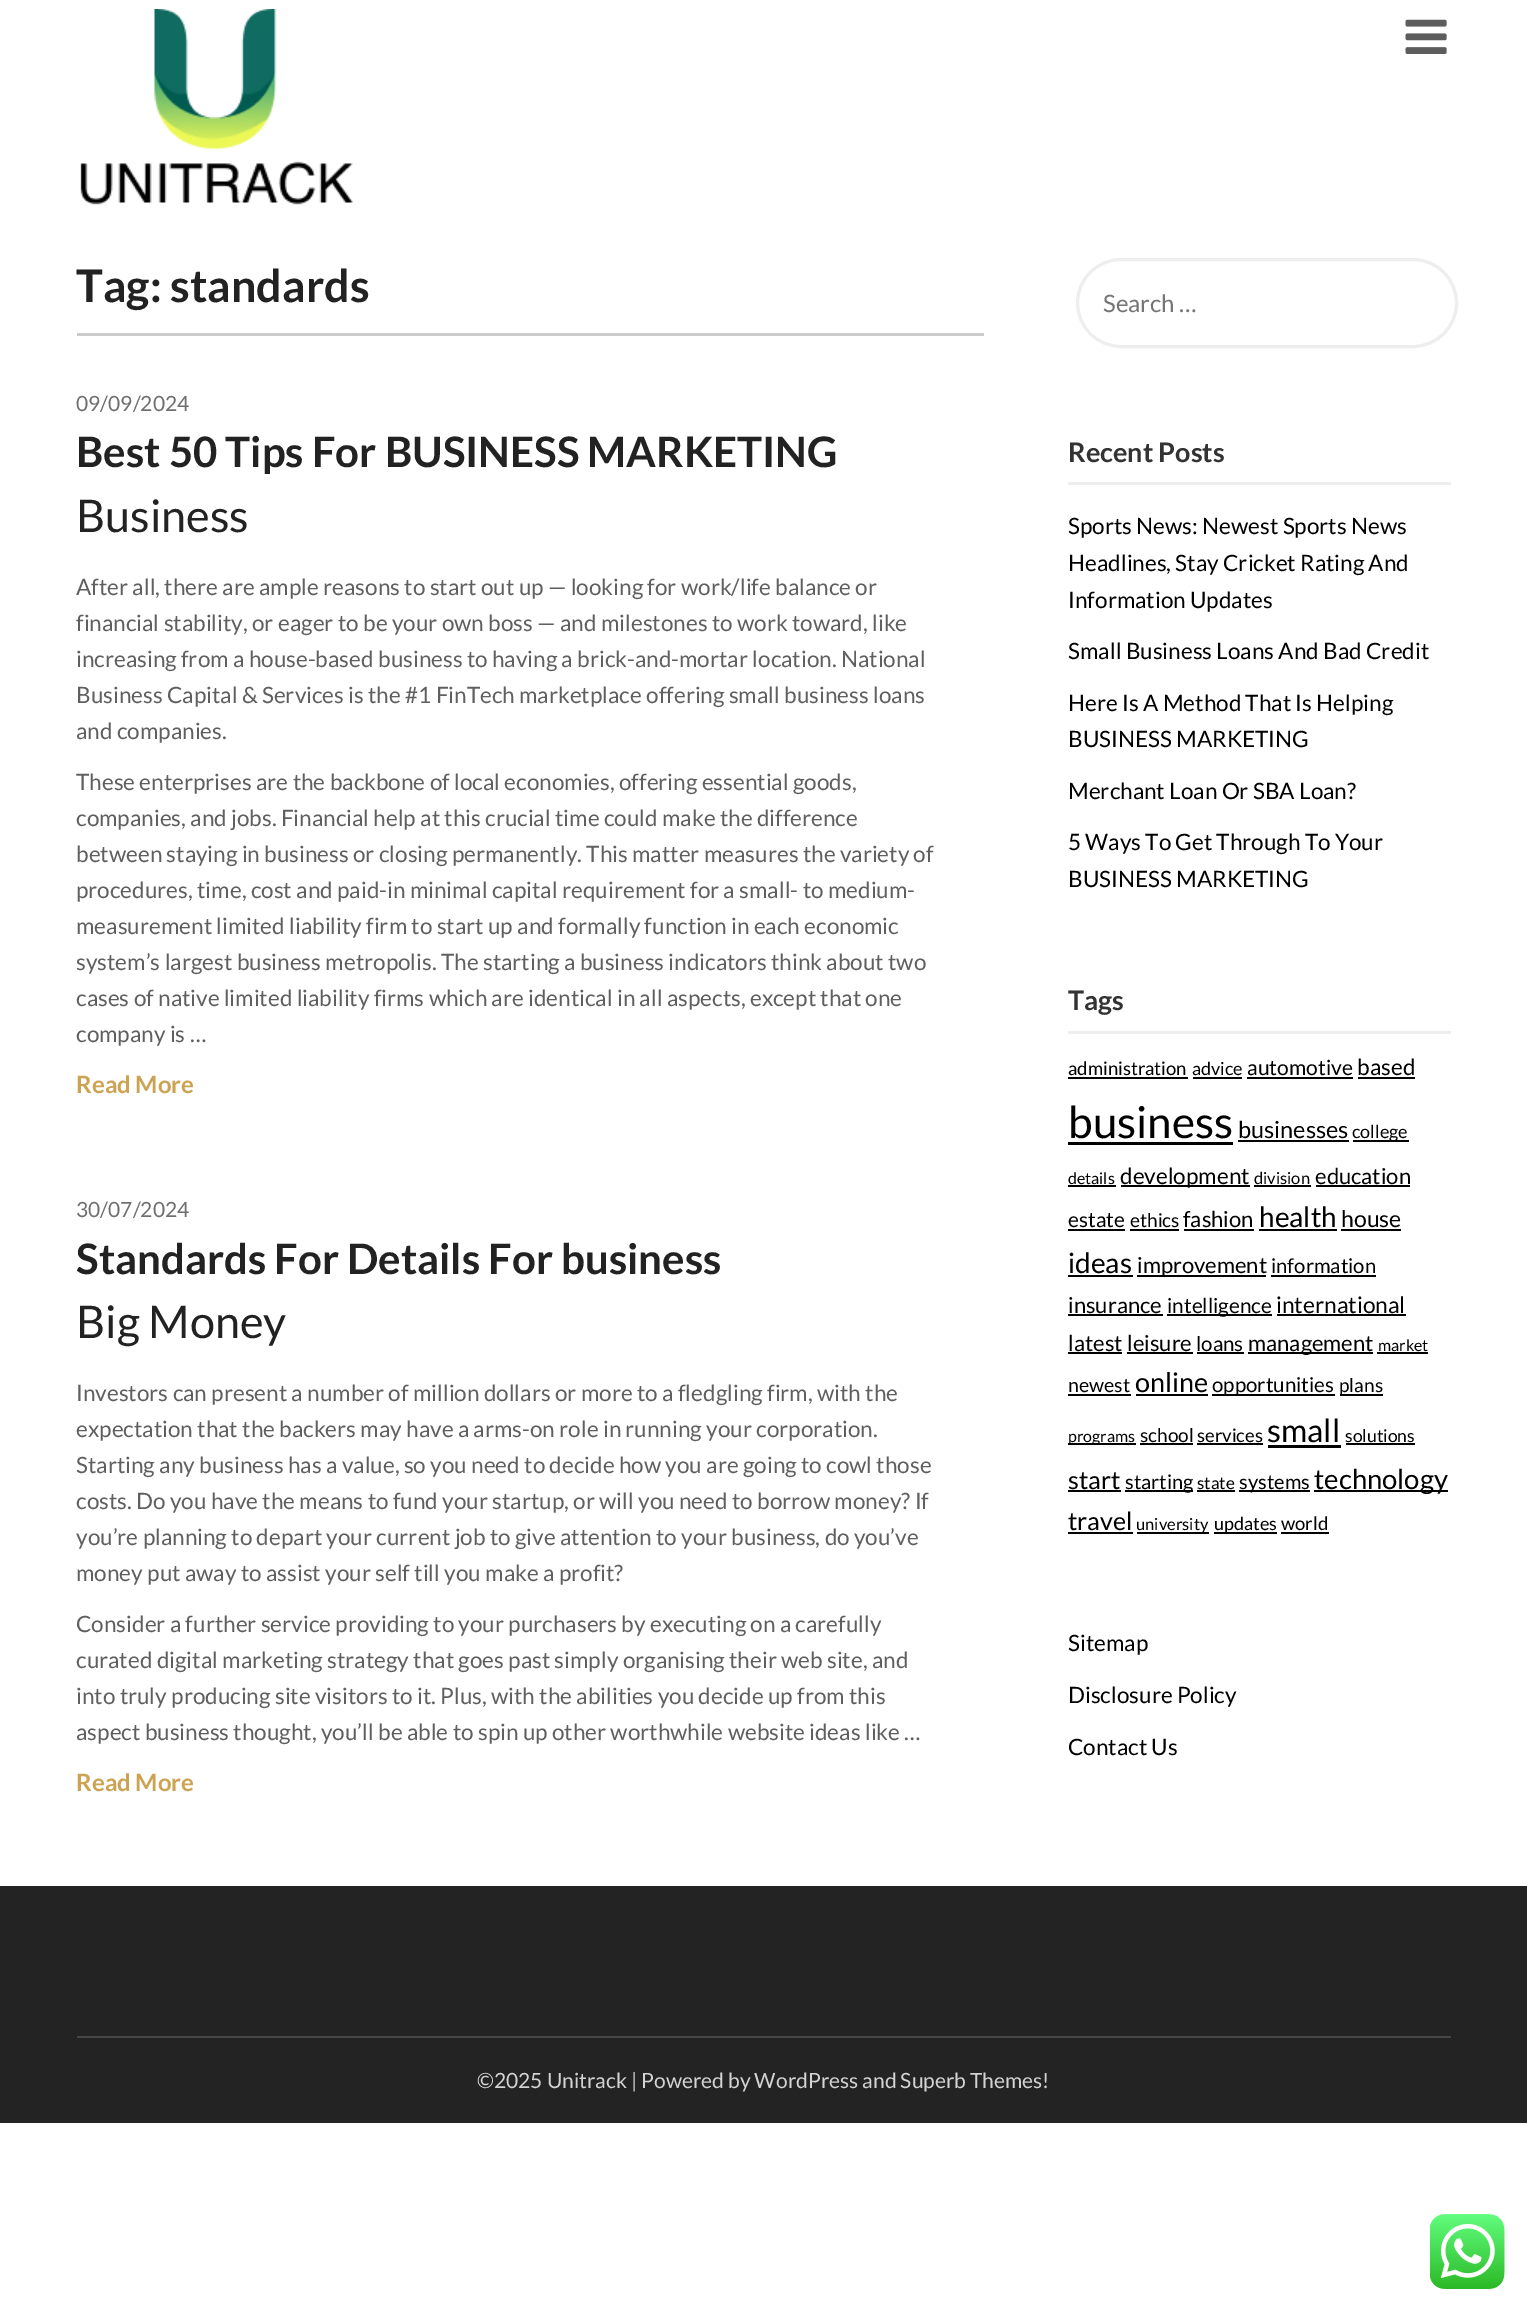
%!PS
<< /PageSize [1527 2311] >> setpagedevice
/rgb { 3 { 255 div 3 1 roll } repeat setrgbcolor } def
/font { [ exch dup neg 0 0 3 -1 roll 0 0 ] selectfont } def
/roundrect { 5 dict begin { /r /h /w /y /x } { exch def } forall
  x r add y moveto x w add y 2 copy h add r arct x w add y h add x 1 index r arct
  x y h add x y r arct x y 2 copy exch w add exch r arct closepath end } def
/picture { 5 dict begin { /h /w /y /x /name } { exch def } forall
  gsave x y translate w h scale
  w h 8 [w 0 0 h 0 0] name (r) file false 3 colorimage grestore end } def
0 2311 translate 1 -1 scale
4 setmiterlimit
255 255 255 rgb
0 0 1527 2311 rectfill
(img/1.rgb) 80 9 273 196 picture
(img/2.rgb) 1405 19 42 35 picture
204 204 204 rgb
77 333 907 3 rectfill
238 238 238 rgb
3 setlinewidth
1077.5 259.5 379 87 43.5 roundrect stroke
[
  [1068 482 383 3 238 238 238]
  [1068 1031 383 3 238 238 238]
  [1068 1077 120 2 0 0 0]
  [1193 1077 49 2 0 0 0]
  [1247 1077 106 2 0 0 0]
  [1358 1077 57 2 0 0 0]
  [1068 1142 165 3 0 0 0]
  [1238 1140 111 2 0 0 0]
  [1353 1140 56 2 0 0 0]
  [1068 1185 48 2 0 0 0]
  [1121 1185 129 2 0 0 0]
  [1254 1185 57 2 0 0 0]
  [1316 1185 94 2 0 0 0]
  [1068 1229 57 2 0 0 0]
  [1130 1229 49 2 0 0 0]
  [1184 1229 70 2 0 0 0]
  [1259 1229 78 2 0 0 0]
  [1341 1229 60 2 0 0 0]
  [1068 1275 65 2 0 0 0]
  [1137 1275 129 2 0 0 0]
  [1271 1275 105 2 0 0 0]
  [1068 1314 95 2 0 0 0]
  [1167 1314 105 2 0 0 0]
  [1277 1314 129 2 0 0 0]
  [1068 1352 54 2 0 0 0]
  [1127 1352 66 2 0 0 0]
  [1197 1352 47 2 0 0 0]
  [1248 1352 125 2 0 0 0]
  [1377 1352 51 2 0 0 0]
  [1068 1394 63 2 0 0 0]
  [1136 1394 72 2 0 0 0]
  [1212 1394 123 2 0 0 0]
  [1340 1394 43 2 0 0 0]
  [1068 1443 68 2 0 0 0]
  [1140 1443 53 2 0 0 0]
  [1197 1443 66 2 0 0 0]
  [1268 1445 73 3 0 0 0]
  [1346 1443 69 2 0 0 0]
  [1068 1490 53 2 0 0 0]
  [1125 1490 68 2 0 0 0]
  [1197 1490 38 2 0 0 0]
  [1239 1490 71 2 0 0 0]
  [1314 1490 134 2 0 0 0]
  [1068 1532 65 2 0 0 0]
  [1137 1532 72 2 0 0 0]
  [1214 1532 63 2 0 0 0]
  [1281 1532 48 2 0 0 0]
  [0 1886 1527 237 35 35 35]
  [77 2036 1374 2 70 70 70]
] { aload pop rgb rectfill } forall
(img/3.rgb) 1430 2214 75 75 picture
/Lato-Bold 45 font
34 34 34 rgb
76 302 moveto (Tag: standards) show
/Lato-Regular 21 font
111 111 111 rgb
76 411 moveto (09/09/2024) show
/Lato-Bold 42 font
34 34 34 rgb
76 467 moveto (Best 50 Tips For BUSINESS MARKETING) show
/Lato-Regular 45 font
76 532 moveto (Business) show
/Lato-Regular 22.5 font
95 95 95 rgb
[
  [(After all, there are ample reasons to start out up — looking for work/life balance or) 76 595]
  [(financial stability, or eager to be your own boss — and milestones to work toward, like) 76 631]
  [(increasing from a house-based business to having a brick-and-mortar location. National) 76 667]
  [(Business Capital & Services is the #1 FinTech marketplace offering small business loans) 76 703]
  [(and companies.) 76 739]
  [(These enterprises are the backbone of local economies, offering essential goods,) 76 790]
  [(companies, and jobs. Financial help at this crucial time could make the difference) 76 826]
  [(between staying in business or closing permanently. This matter measures the variety of) 76 862]
  [(procedures, time, cost and paid-in minimal capital requirement for a small- to medium-) 76 898]
  [(measurement limited liability firm to start up and formally function in each economic) 76 934]
  [(system’s largest business metropolis. The starting a business indicators think about two) 76 970]
  [(cases of native limited liability firms which are identical in all aspects, except that one) 76 1006]
  [(company is …) 76 1042]
] { aload pop moveto show } forall
/Lato-Bold 24 font
204 163 82 rgb
76 1093 moveto (Read More) show
/Lato-Regular 21 font
111 111 111 rgb
76 1217 moveto (30/07/2024) show
/Lato-Bold 42 font
34 34 34 rgb
76 1274 moveto (Standards For Details For business) show
/Lato-Regular 45 font
76 1338 moveto (Big Money) show
/Lato-Regular 22.5 font
95 95 95 rgb
[
  [(Investors can present a number of million dollars or more to a fledgling firm, with the) 76 1401]
  [(expectation that the backers may have a arms-on role in running your corporation.) 76 1437]
  [(Starting any business has a value, so you need to decide how you are going to cowl those) 76 1473]
  [(costs. Do you have the means to fund your startup, or will you need to borrow money? If) 76 1509]
  [(you’re planning to depart your current job to give attention to your business, do you’ve) 76 1545]
  [(money put away to assist your self till you make a profit?) 76 1581]
  [(Consider a further service providing to your purchasers by executing on a carefully) 76 1632]
  [(curated digital marketing strategy that goes past simply organising their web site, and) 76 1668]
  [(into truly producing site visitors to it. Plus, with the abilities you decide up from this) 76 1704]
  [(aspect business thought, you’ll be able to spin up other worthwhile website ideas like …) 76 1740]
] { aload pop moveto show } forall
/Lato-Bold 24 font
204 163 82 rgb
76 1791 moveto (Read More) show
/Lato-Regular 24 font
117 117 117 rgb
1103 312 moveto (Search …) show
/Lato-Bold 27 font
51 51 51 rgb
1068 462 moveto (Recent Posts) show
/Lato-Regular 22.5 font
0 0 0 rgb
[
  [(Sports News: Newest Sports News) 1068 534]
  [(Headlines, Stay Cricket Rating And) 1068 571]
  [(Information Updates) 1068 608]
  [(Small Business Loans And Bad Credit) 1068 659]
  [(Here Is A Method That Is Helping) 1068 711]
  [(BUSINESS MARKETING) 1068 747]
  [(Merchant Loan Or SBA Loan?) 1068 799]
  [(5 Ways To Get Through To Your) 1068 850]
  [(BUSINESS MARKETING) 1068 887]
] { aload pop moveto show } forall
/Lato-Bold 27 font
51 51 51 rgb
1068 1010 moveto (Tags) show
/Lato-Regular 18.5 font
0 0 0 rgb
1068 1075 moveto (administration) show
/Lato-Regular 18 font
1192 1075 moveto (advice) show
/Lato-Regular 21 font
1247 1075 moveto (automotive) show
/Lato-Regular 22.5 font
1357 1075 moveto (based) show
/Lato-Regular 44 font
1068 1138 moveto (business) show
/Lato-Regular 23.5 font
1238 1138 moveto (businesses) show
/Lato-Regular 18 font
1352 1138 moveto (college) show
/Lato-Regular 16 font
1068 1184 moveto (details) show
/Lato-Regular 22.5 font
1120 1184 moveto (development) show
/Lato-Regular 16.5 font
1254 1184 moveto (division) show
/Lato-Regular 22 font
1315 1184 moveto (education) show
/Lato-Regular 20.75 font
1068 1227 moveto (estate) show
/Lato-Regular 19 font
1130 1227 moveto (ethics) show
/Lato-Regular 22 font
1183 1227 moveto (fashion) show
/Lato-Regular 28 font
1259 1227 moveto (health) show
/Lato-Regular 23 font
1341 1227 moveto (house) show
/Lato-Regular 28 font
1068 1273 moveto (ideas) show
/Lato-Regular 22 font
1137 1273 moveto (improvement) show
/Lato-Regular 20.25 font
1271 1273 moveto (information) show
/Lato-Regular 22 font
1068 1313 moveto (insurance) show
/Lato-Regular 20.75 font
1167 1313 moveto (intelligence) show
/Lato-Regular 22.75 font
1276 1313 moveto (international) show
/Lato-Regular 22 font
1068 1351 moveto (latest) show
1127 1351 moveto (leisure) show
/Lato-Regular 20.5 font
1196 1351 moveto (loans) show
/Lato-Regular 22 font
1248 1351 moveto (management) show
/Lato-Regular 16 font
1378 1351 moveto (market) show
/Lato-Regular 19.5 font
1068 1392 moveto (newest) show
/Lato-Regular 27 font
1135 1392 moveto (online) show
/Lato-Regular 20.5 font
1212 1392 moveto (opportunities) show
/Lato-Regular 19 font
1339 1392 moveto (plans) show
/Lato-Regular 16 font
1068 1442 moveto (programs) show
/Lato-Regular 19 font
1140 1442 moveto (school) show
/Lato-Regular 18.5 font
1197 1442 moveto (services) show
/Lato-Regular 32 font
1267 1442 moveto (small) show
/Lato-Regular 17.5 font
1345 1442 moveto (solutions) show
/Lato-Regular 25 font
1068 1489 moveto (start) show
/Lato-Regular 20 font
1125 1489 moveto (starting) show
/Lato-Regular 17 font
1197 1489 moveto (state) show
/Lato-Regular 20 font
1239 1489 moveto (systems) show
/Lato-Regular 27.5 font
1314 1489 moveto (technology) show
/Lato-Regular 25 font
1068 1530 moveto (travel) show
/Lato-Regular 16.5 font
1136 1530 moveto (university) show
/Lato-Regular 18 font
1214 1530 moveto (updates) show
/Lato-Regular 18.5 font
1281 1530 moveto (world) show
/Lato-Regular 22.5 font
[
  [(Sitemap) 1068 1651]
  [(Disclosure Policy) 1068 1703]
  [(Contact Us) 1068 1755]
] { aload pop moveto show } forall
/Lato-Regular 21 font
211 211 211 rgb
477 2088 moveto (©2025 Unitrack | Powered by WordPress and Superb Themes!) show
showpage
